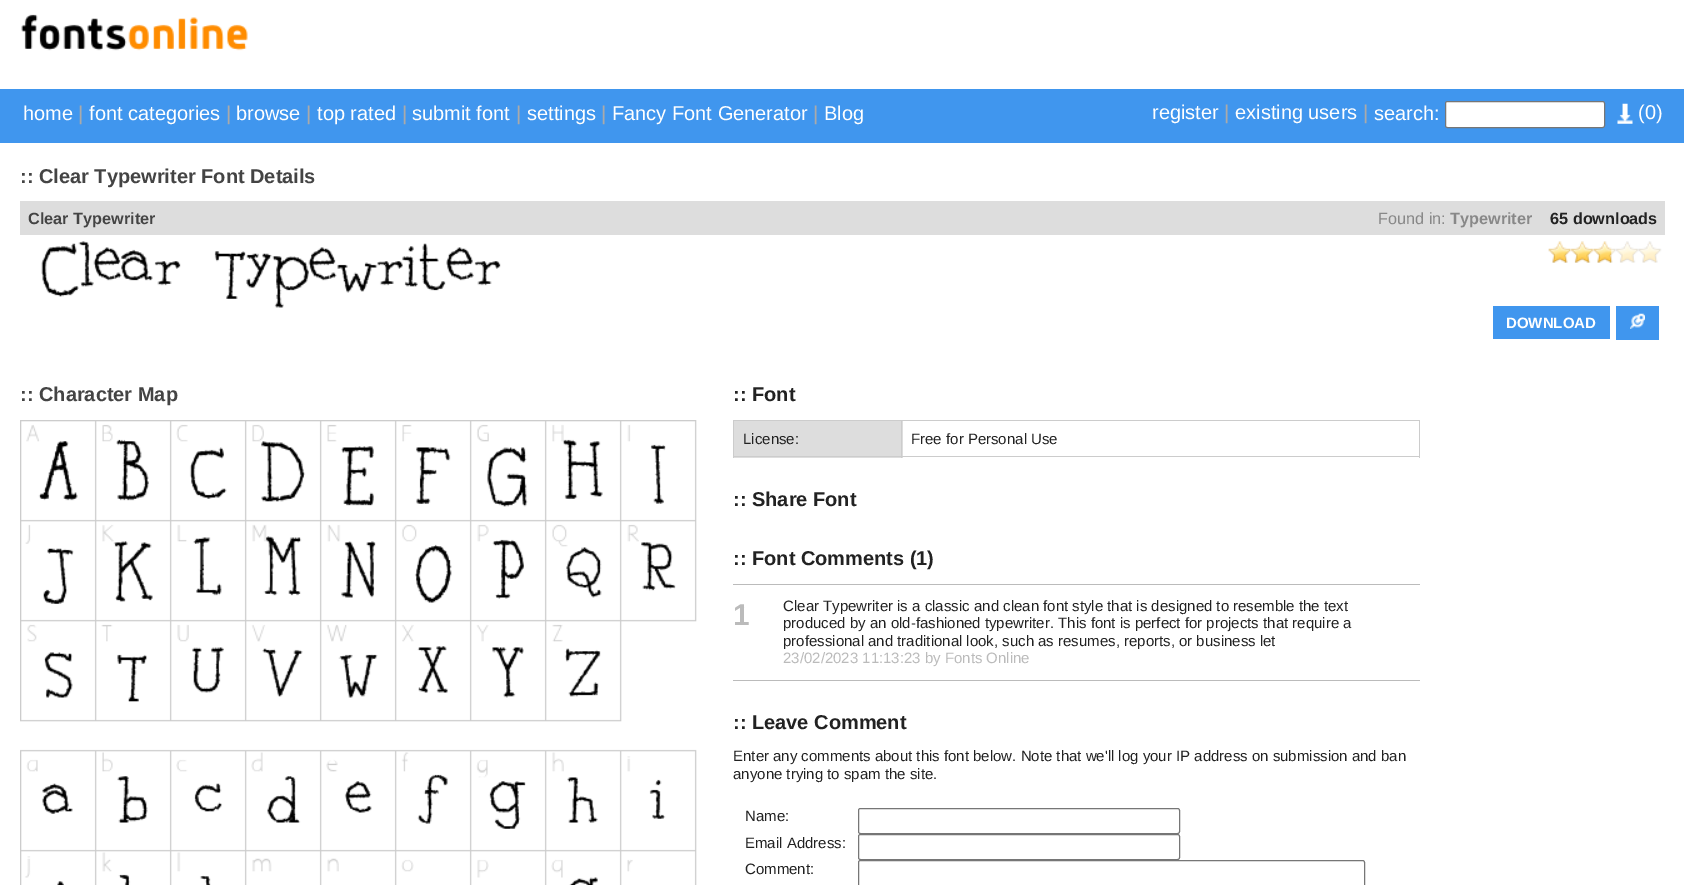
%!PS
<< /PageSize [1684 885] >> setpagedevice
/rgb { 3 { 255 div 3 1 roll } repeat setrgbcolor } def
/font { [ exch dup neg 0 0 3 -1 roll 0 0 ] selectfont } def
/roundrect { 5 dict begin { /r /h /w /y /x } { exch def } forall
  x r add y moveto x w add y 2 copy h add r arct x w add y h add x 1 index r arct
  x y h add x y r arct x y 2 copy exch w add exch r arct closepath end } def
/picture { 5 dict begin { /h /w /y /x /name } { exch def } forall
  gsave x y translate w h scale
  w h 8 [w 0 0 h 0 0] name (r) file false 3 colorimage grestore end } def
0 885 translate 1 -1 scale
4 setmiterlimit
255 255 255 rgb
0 0 1684 885 rectfill
(img/1.rgb) 21 14 227 37 picture
64 150 238 rgb
0 89 1684 54 rectfill
255 255 255 rgb
1445.5 101.5 159 26 2 roundrect gsave fill grestore
118 118 118 rgb
stroke
(img/2.rgb) 1617 103 16 21 picture
221 221 221 rgb
20 201 1645 34 rectfill
(img/3.rgb) 41 241 460 67 picture
(img/4.rgb) 1548 241 114 22 picture
(img/5.rgb) 1548 241 64 22 picture
64 150 238 rgb
1493 306 117 33 rectfill
1616 306 43 34 rectfill
(img/6.rgb) 1630 313 15 16 picture
(img/7.rgb) 20 420 677 465 picture
[
  [733 420 687 1 204 204 204]
  [733 420 1 38 204 204 204]
  [734 421 169 37 221 221 221]
  [901 421 1 37 204 204 204]
  [734 456 169 1 204 204 204]
  [1419 421 1 37 204 204 204]
  [903 456 517 1 204 204 204]
  [733 584 687 1 187 187 187]
  [733 680 687 1 187 187 187]
] { aload pop rgb rectfill } forall
118 118 118 rgb
858.5 808.5 321 25 2 roundrect stroke
858.5 834.5 321 25 2 roundrect stroke
858.5 860.5 506 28 2 roundrect stroke
/LiberationSans-Regular 20 font
255 255 255 rgb
23 120 moveto (home) show
170 170 170 rgb
78 120 moveto (|) show
255 255 255 rgb
89 120 moveto (font categories) show
170 170 170 rgb
226 120 moveto (|) show
255 255 255 rgb
236 120 moveto (browse) show
170 170 170 rgb
306 120 moveto (|) show
255 255 255 rgb
317 120 moveto (top rated) show
170 170 170 rgb
402 120 moveto (|) show
255 255 255 rgb
412 120 moveto (submit font) show
170 170 170 rgb
516 120 moveto (|) show
255 255 255 rgb
527 120 moveto (settings) show
170 170 170 rgb
601 120 moveto (|) show
255 255 255 rgb
612 120 moveto (Fancy Font Generator) show
170 170 170 rgb
813 120 moveto (|) show
255 255 255 rgb
824 120 moveto (Blog) show
1152 119 moveto (register) show
170 170 170 rgb
1224 119 moveto (|) show
255 255 255 rgb
1235 119 moveto (existing users) show
170 170 170 rgb
1363 119 moveto (|) show
255 255 255 rgb
1374 120 moveto (search:) show
1638 119 moveto (\(0\)) show
/LiberationSans-Bold 20 font
68 68 68 rgb
20 183 moveto (:: Clear Typewriter Font Details) show
/LiberationSans-Bold 16.25 font
28 224 moveto (Clear Typewriter) show
/LiberationSans-Regular 16.25 font
136 136 136 rgb
1378 224 moveto (Found in:) show
/LiberationSans-Bold 16.25 font
1450 224 moveto (Typewriter) show
34 34 34 rgb
1550 224 moveto (65 downloads) show
/LiberationSans-Bold 15 font
255 255 255 rgb
1506 328 moveto (DOWNLOAD) show
/LiberationSans-Bold 20 font
68 68 68 rgb
20 401 moveto (:: Character Map) show
34 34 34 rgb
733 401 moveto (:: Font) show
/LiberationSans-Regular 15 font
743 444 moveto (License:) show
911 444 moveto (Free for Personal Use) show
/LiberationSans-Bold 20 font
733 506 moveto (:: Share Font) show
733 565 moveto (:: Font Comments \(1\)) show
/LiberationSans-Bold 30 font
187 187 187 rgb
733 625 moveto (1) show
/LiberationSans-Regular 15 font
34 34 34 rgb
[
  [(Clear Typewriter is a classic and clean font style that is designed to resemble the text) 783 611]
  [(produced by an old-fashioned typewriter. This font is perfect for projects that require a) 783 628]
  [(professional and traditional look, such as resumes, reports, or business let) 783 646]
] { aload pop moveto show } forall
187 187 187 rgb
783 663 moveto (23/02/2023 11:13:23 by Fonts Online) show
/LiberationSans-Bold 20 font
34 34 34 rgb
733 729 moveto (:: Leave Comment) show
/LiberationSans-Regular 15 font
[
  [(Enter any comments about this font below. Note that we'll log your IP address on submission and ban) 733 761]
  [(anyone trying to spam the site.) 733 779]
  [(Name:) 745 821]
  [(Email Address:) 745 848]
  [(Comment:) 745 874]
] { aload pop moveto show } forall
showpage
